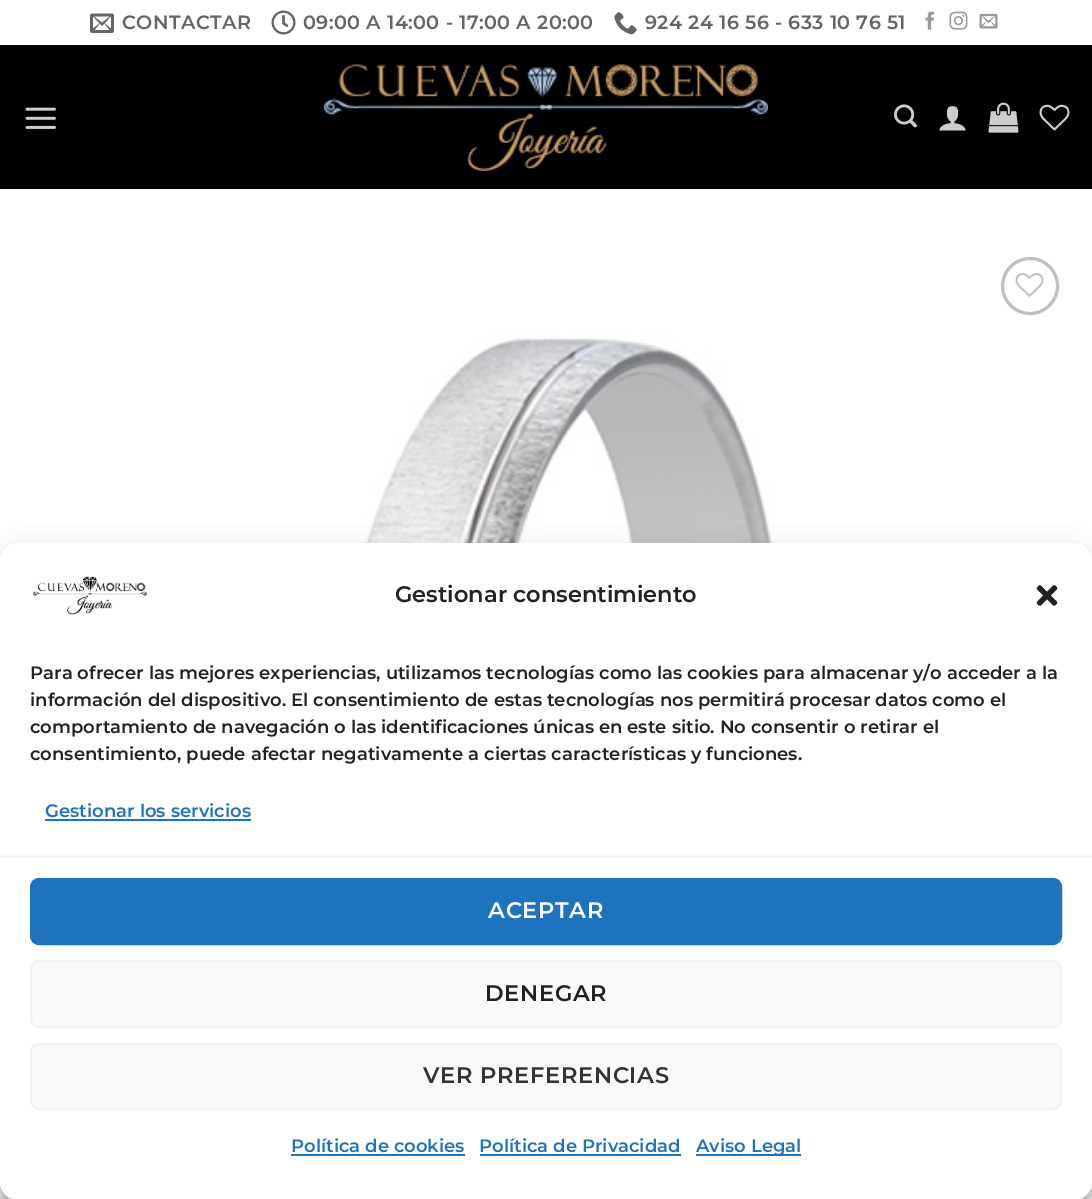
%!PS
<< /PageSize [1092 1199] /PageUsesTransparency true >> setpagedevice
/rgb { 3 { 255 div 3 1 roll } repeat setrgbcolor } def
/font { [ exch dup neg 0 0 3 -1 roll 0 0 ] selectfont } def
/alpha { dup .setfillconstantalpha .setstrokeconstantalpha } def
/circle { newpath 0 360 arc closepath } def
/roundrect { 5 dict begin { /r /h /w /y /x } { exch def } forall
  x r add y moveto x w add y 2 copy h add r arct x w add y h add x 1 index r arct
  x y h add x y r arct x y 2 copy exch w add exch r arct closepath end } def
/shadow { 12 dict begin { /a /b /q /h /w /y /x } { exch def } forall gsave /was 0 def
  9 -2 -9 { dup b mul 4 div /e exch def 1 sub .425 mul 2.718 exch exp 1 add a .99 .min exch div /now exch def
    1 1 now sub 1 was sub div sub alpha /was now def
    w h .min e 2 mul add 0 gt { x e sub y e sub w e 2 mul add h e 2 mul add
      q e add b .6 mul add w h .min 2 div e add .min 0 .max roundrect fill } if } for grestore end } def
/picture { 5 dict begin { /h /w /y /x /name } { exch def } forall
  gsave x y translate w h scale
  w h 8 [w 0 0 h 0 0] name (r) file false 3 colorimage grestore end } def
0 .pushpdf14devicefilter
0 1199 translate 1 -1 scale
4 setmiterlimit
255 255 255 rgb
0 0 1092 1199 rectfill
(img/1.rgb) 90 13 24 20 picture
(img/2.rgb) 271 10 25 25 picture
(img/3.rgb) 614 12 23 23 picture
(img/4.rgb) 925 11 9 19 picture
(img/5.rgb) 949 11 19 19 picture
(img/6.rgb) 979 13 19 16 picture
0 0 0 rgb
0 45 1092 144 rectfill
(img/7.rgb) 25 107 31 22 picture
(img/8.rgb) 324 64 444 107 picture
(img/9.rgb) 894 104 23 24 picture
(img/10.rgb) 939 106 27 25 picture
(img/11.rgb) 988 102 31 31 picture
(img/12.rgb) 1039 104 31 27 picture
192 192 192 rgb
3 setlinewidth
1030 286 27.5 circle stroke
(img/13.rgb) 1015 273 29 24 picture
(img/14.rgb) 330 333 456 210 picture
0 0 0 rgb
0 552 1092 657 18 4.5 0.23 shadow
0 558 1092 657 18 15 0.19 shadow
255 255 255 rgb
0 543 1092 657 18 roundrect fill
(img/15.rgb) 33 576 115 39 picture
(img/16.rgb) 1036 585 22 21 picture
30 115 190 rgb
45 819 206 2 rectfill
gsave
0 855 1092 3 rectclip
0 0 0 rgb
0 855 1092 5 0 2 0.05 shadow
grestore
31 879 1030 65 8 roundrect gsave fill grestore
2 setlinewidth
stroke
249 249 249 rgb
31 961 1030 66 8 roundrect gsave fill grestore
242 242 242 rgb
stroke
249 249 249 rgb
31 1044 1030 65 8 roundrect gsave fill grestore
242 242 242 rgb
stroke
[
  [291 1154 174 2 30 115 190]
  [480 1154 201 2 30 115 190]
  [696 1154 105 2 30 115 190]
] { aload pop rgb rectfill } forall
/Montserrat-Thin 19.25 font
101 101 101 rgb
122 29 moveto 0.4 0 (CONTACTAR) ashow
303 29 moveto 0.4 0 (09:00 A 14:00 - 17:00 A 20:00) ashow
645 29 moveto 0.4 0 (924 24 16 56 - 633 10 76 51) ashow
/Montserrat-Thin 22.5 font
34 34 34 rgb
395 602 moveto (Gestionar consentimiento) show
/Montserrat-Thin 18 font
[
  [(Para ofrecer las mejores experiencias, utilizamos tecnologías como las cookies para almacenar y/o acceder a la) 30 679]
  [(información del dispositivo. El consentimiento de estas tecnologías nos permitirá procesar datos como el) 30 706]
  [(comportamiento de navegación o las identificaciones únicas en este sitio. No consentir o retirar el) 30 733]
  [(consentimiento, puede afectar negativamente a ciertas características y funciones.) 30 760]
] { aload pop moveto show } forall
30 115 190 rgb
45 817 moveto (Gestionar los servicios) show
/Montserrat-Thin 22.5 font
255 255 255 rgb
488 918 moveto 0.7 0 (ACEPTAR) ashow
34 34 34 rgb
485 1001 moveto 0.7 0 (DENEGAR) ashow
51 51 51 rgb
423 1083 moveto 0.7 0 (VER PREFERENCIAS) ashow
/Montserrat-Thin 18 font
30 115 190 rgb
[
  [(Política de cookies) 291 1152]
  [(Política de Privacidad) 479 1152]
  [(Aviso Legal) 696 1152]
] { aload pop moveto show } forall
.poppdf14devicefilter showpage
